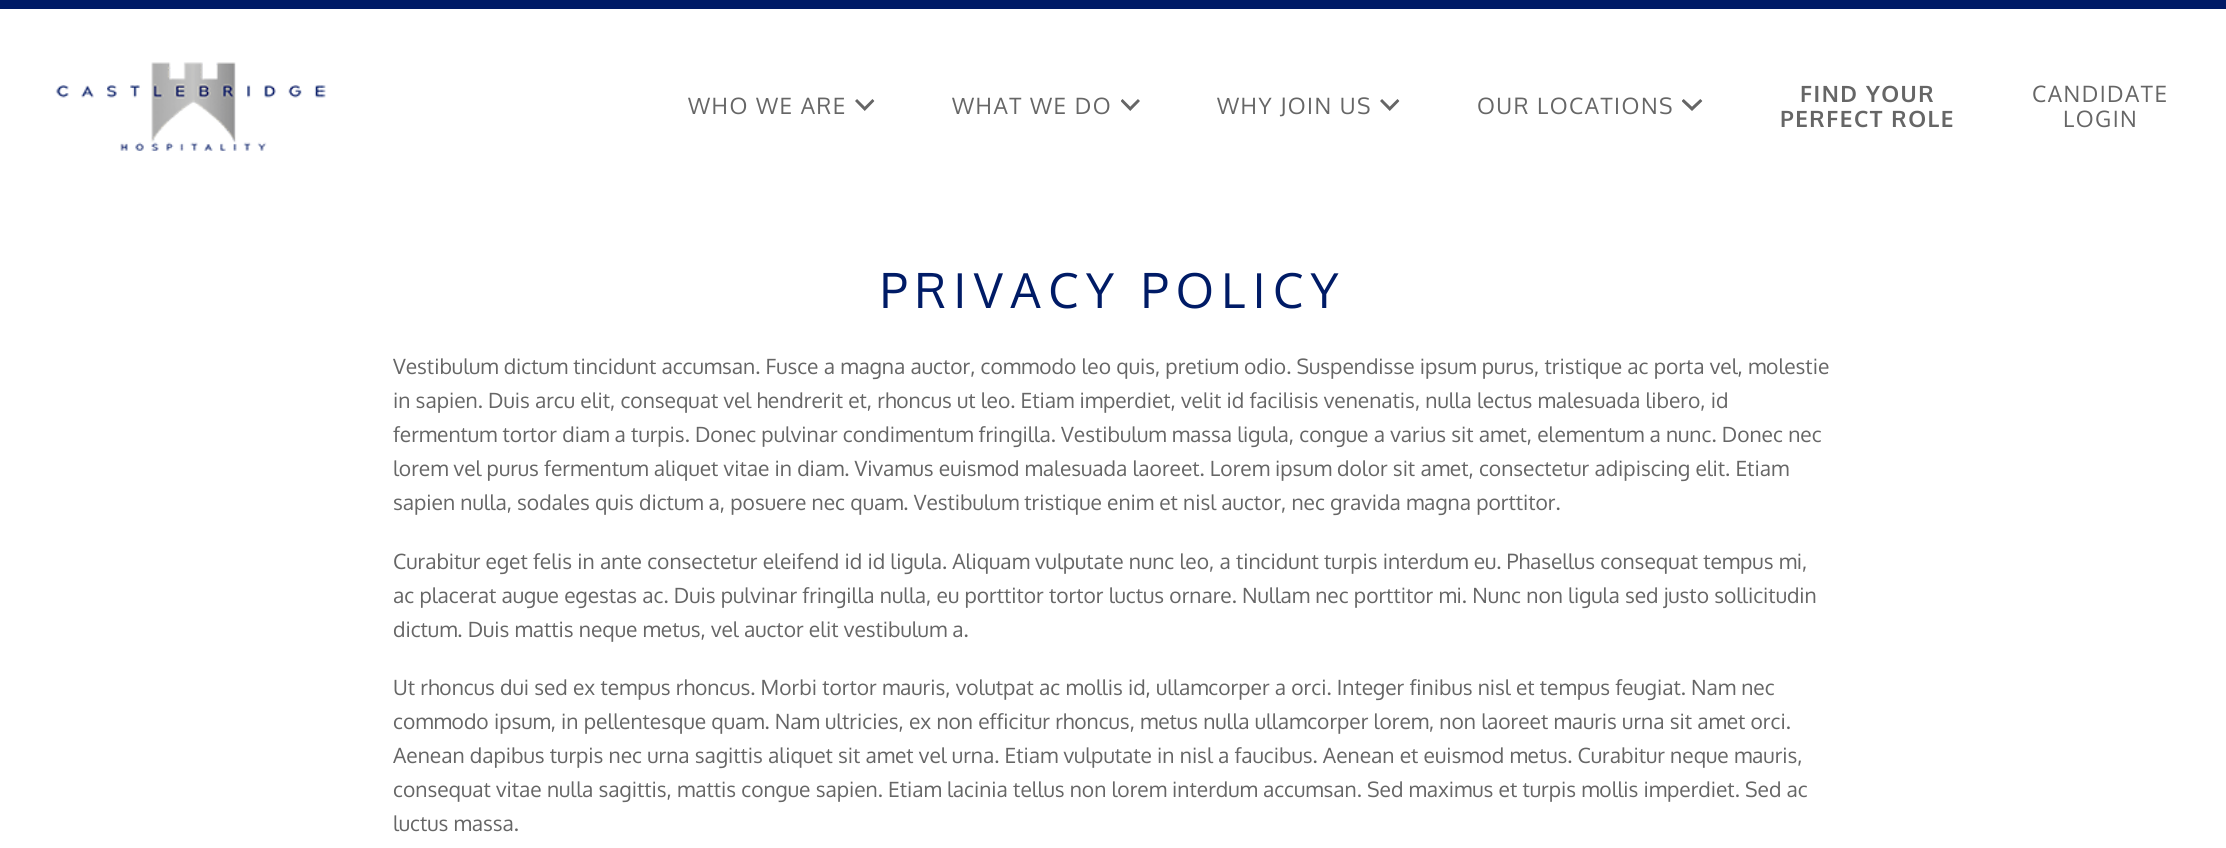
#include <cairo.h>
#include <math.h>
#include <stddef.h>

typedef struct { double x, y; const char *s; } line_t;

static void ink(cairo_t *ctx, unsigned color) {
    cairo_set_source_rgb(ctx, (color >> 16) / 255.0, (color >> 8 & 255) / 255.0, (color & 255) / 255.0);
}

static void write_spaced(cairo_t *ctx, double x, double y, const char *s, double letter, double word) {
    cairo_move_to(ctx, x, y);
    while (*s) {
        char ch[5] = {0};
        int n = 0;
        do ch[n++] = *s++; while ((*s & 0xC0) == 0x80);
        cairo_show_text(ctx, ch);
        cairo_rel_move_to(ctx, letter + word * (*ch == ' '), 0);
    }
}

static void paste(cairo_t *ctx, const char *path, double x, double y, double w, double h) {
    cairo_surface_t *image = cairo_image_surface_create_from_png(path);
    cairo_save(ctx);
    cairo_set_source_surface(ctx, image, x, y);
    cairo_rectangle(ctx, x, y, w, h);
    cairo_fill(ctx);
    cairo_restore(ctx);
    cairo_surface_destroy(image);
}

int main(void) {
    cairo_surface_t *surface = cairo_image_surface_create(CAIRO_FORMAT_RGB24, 2226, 848);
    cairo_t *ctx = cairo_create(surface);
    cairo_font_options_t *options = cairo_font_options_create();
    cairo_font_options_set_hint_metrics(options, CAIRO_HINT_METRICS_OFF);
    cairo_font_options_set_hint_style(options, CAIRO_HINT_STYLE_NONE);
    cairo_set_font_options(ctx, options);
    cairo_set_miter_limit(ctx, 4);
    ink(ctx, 0xFFFFFF);
    cairo_paint(ctx);
    ink(ctx, 0x001B66);
    cairo_rectangle(ctx, 0, 0, 2226, 9);
    cairo_fill(ctx);
    paste(ctx, "media/1.png", 55, 62, 271, 89);
    cairo_select_font_face(ctx, "Oxygen", CAIRO_FONT_SLANT_NORMAL, CAIRO_FONT_WEIGHT_NORMAL);
    cairo_set_font_size(ctx, 22.5);
    ink(ctx, 0x666666);
    write_spaced(ctx, 688, 114, "WHO WE ARE", 1.5, 0);
    paste(ctx, "media/2.png", 855, 99, 20, 12);
    write_spaced(ctx, 952, 114, "WHAT WE DO", 1.5, 0);
    paste(ctx, "media/3.png", 1121, 99, 19, 12);
    write_spaced(ctx, 1217, 114, "WHY JOIN US", 1.5, 0);
    paste(ctx, "media/2.png", 1380, 99, 20, 12);
    write_spaced(ctx, 1477, 114, "OUR LOCATIONS", 1.5, 0);
    paste(ctx, "media/4.png", 1682, 99, 21, 12);
    cairo_select_font_face(ctx, "Oxygen", CAIRO_FONT_SLANT_NORMAL, CAIRO_FONT_WEIGHT_BOLD);
    write_spaced(ctx, 1800, 102, "FIND YOUR", 1.5, 0);
    write_spaced(ctx, 1780, 127, "PERFECT ROLE", 1.5, 0);
    cairo_select_font_face(ctx, "Oxygen", CAIRO_FONT_SLANT_NORMAL, CAIRO_FONT_WEIGHT_NORMAL);
    write_spaced(ctx, 2032, 102, "CANDIDATE", 1.5, 0);
    write_spaced(ctx, 2063, 127, "LOGIN", 1.5, 0);
    cairo_set_font_size(ctx, 48);
    ink(ctx, 0x001B66);
    write_spaced(ctx, 880, 308, "PRIVACY POLICY", 7.5, 0);
    cairo_set_font_size(ctx, 21);
    ink(ctx, 0x666666);
    {
        static const line_t items[] = {
            {393, 374, "Vestibulum dictum tincidunt accumsan. Fusce a magna auctor, commodo leo quis, pretium odio. Suspendisse ipsum purus, tristique ac porta vel, molestie"},
            {393, 408, "in sapien. Duis arcu elit, consequat vel hendrerit et, rhoncus ut leo. Etiam imperdiet, velit id facilisis venenatis, nulla lectus malesuada libero, id"},
            {393, 442, "fermentum tortor diam a turpis. Donec pulvinar condimentum fringilla. Vestibulum massa ligula, congue a varius sit amet, elementum a nunc. Donec nec"},
            {393, 476, "lorem vel purus fermentum aliquet vitae in diam. Vivamus euismod malesuada laoreet. Lorem ipsum dolor sit amet, consectetur adipiscing elit. Etiam"},
            {393, 510, "sapien nulla, sodales quis dictum a, posuere nec quam. Vestibulum tristique enim et nisl auctor, nec gravida magna porttitor."},
            {393, 569, "Curabitur eget felis in ante consectetur eleifend id id ligula. Aliquam vulputate nunc leo, a tincidunt turpis interdum eu. Phasellus consequat tempus mi,"},
            {393, 603, "ac placerat augue egestas ac. Duis pulvinar fringilla nulla, eu porttitor tortor luctus ornare. Nullam nec porttitor mi. Nunc non ligula sed justo sollicitudin"},
            {393, 637, "dictum. Duis mattis neque metus, vel auctor elit vestibulum a."},
            {393, 695, "Ut rhoncus dui sed ex tempus rhoncus. Morbi tortor mauris, volutpat ac mollis id, ullamcorper a orci. Integer finibus nisl et tempus feugiat. Nam nec"},
            {393, 729, "commodo ipsum, in pellentesque quam. Nam ultricies, ex non efficitur rhoncus, metus nulla ullamcorper lorem, non laoreet mauris urna sit amet orci."},
            {393, 763, "Aenean dapibus turpis nec urna sagittis aliquet sit amet vel urna. Etiam vulputate in nisl a faucibus. Aenean et euismod metus. Curabitur neque mauris,"},
            {393, 797, "consequat vitae nulla sagittis, mattis congue sapien. Etiam lacinia tellus non lorem interdum accumsan. Sed maximus et turpis mollis imperdiet. Sed ac"},
            {393, 831, "luctus massa."},
        };
        for (size_t i = 0; i < sizeof items / sizeof *items; i++) {
            cairo_move_to(ctx, items[i].x, items[i].y);
            cairo_show_text(ctx, items[i].s);
        }
    }
    cairo_surface_write_to_png(surface, "image.png");
    cairo_font_options_destroy(options);
    cairo_destroy(ctx);
    cairo_surface_destroy(surface);
    return 0;
}
